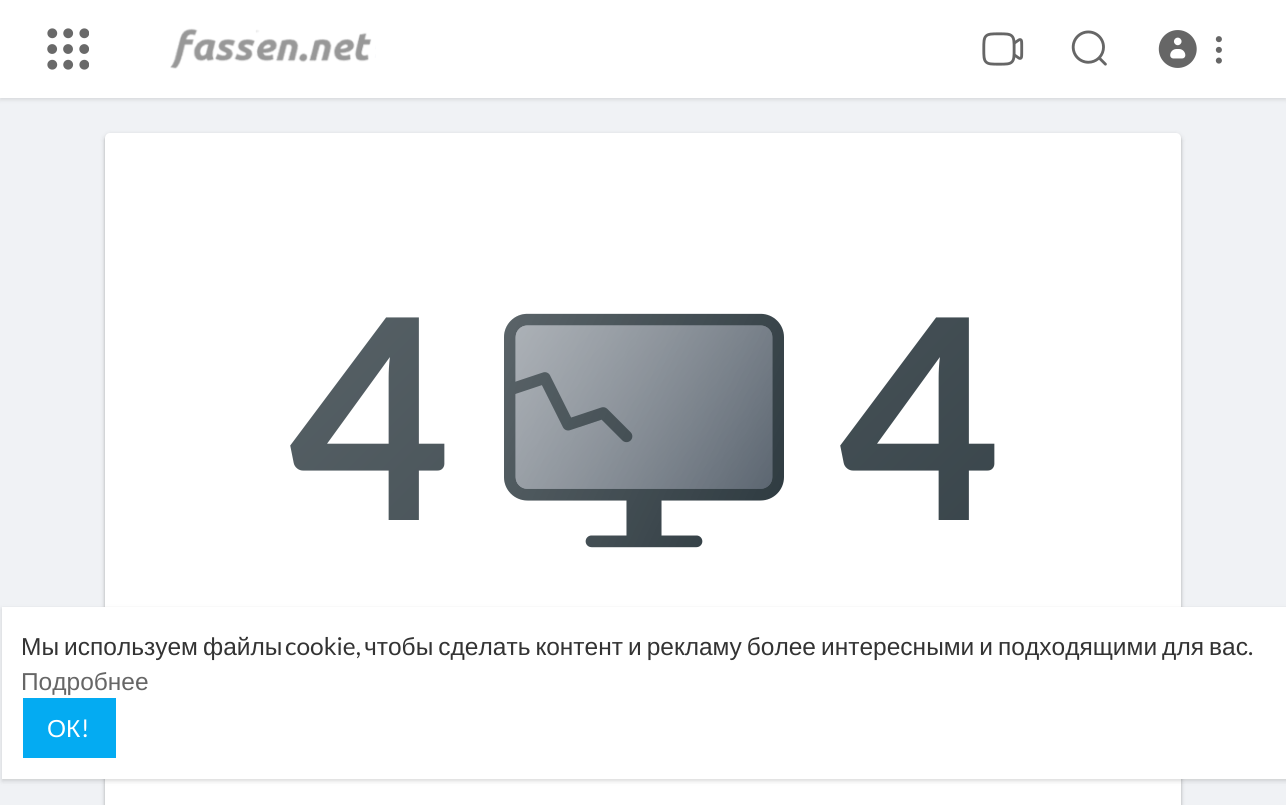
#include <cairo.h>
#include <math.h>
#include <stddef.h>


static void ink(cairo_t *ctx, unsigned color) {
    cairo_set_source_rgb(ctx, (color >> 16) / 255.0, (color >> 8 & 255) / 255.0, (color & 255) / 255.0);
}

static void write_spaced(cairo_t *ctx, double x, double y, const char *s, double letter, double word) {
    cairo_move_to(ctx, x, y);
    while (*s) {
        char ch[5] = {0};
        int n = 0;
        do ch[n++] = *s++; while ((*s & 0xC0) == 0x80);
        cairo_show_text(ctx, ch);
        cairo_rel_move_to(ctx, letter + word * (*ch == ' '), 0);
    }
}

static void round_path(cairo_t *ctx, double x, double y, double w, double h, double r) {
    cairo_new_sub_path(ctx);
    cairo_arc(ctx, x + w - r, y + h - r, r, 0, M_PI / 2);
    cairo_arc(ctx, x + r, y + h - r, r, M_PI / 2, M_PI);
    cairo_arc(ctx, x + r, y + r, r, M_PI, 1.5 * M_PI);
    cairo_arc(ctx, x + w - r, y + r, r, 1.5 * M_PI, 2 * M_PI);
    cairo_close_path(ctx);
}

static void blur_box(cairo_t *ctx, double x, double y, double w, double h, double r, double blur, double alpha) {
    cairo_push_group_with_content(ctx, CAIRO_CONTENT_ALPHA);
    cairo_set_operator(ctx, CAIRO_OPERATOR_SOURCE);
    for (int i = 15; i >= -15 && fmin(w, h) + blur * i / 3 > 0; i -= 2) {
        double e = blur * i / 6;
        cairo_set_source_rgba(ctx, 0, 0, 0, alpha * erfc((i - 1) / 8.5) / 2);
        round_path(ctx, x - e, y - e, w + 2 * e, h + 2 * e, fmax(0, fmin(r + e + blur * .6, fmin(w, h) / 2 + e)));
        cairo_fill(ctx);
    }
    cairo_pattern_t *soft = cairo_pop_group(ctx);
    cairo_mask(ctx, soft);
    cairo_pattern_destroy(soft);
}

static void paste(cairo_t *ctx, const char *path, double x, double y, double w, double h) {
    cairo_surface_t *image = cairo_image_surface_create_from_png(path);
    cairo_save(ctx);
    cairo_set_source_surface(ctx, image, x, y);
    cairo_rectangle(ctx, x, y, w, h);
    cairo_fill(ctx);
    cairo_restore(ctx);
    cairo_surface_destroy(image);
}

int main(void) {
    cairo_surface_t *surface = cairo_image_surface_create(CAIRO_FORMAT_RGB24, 1286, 805);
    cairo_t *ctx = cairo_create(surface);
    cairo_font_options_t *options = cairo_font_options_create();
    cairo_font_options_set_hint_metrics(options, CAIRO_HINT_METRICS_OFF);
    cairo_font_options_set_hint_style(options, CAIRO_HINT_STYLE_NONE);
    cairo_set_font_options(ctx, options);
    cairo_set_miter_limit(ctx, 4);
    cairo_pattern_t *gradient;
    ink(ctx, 0xF0F2F5);
    cairo_paint(ctx);
    ink(ctx, 0x000000);
    blur_box(ctx, 0, 2, 1286, 98, 0, 2, 0.1);
    ink(ctx, 0xFFFFFF);
    cairo_rectangle(ctx, 0, 0, 1286, 98);
    cairo_fill(ctx);
    paste(ctx, "media/1.png", 47, 28, 42, 42);
    paste(ctx, "media/2.png", 170, 28, 206, 41);
    paste(ctx, "media/3.png", 982, 32, 42, 34);
    paste(ctx, "media/4.png", 1071, 30, 36, 36);
    paste(ctx, "media/5.png", 1158, 30, 39, 38);
    paste(ctx, "media/6.png", 1215, 36, 7, 28);
    ink(ctx, 0x000000);
    blur_box(ctx, 105, 135, 1076, 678, 5, 1, 0.14);
    blur_box(ctx, 105, 135, 1076, 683, 5, 2.5, 0.2);
    ink(ctx, 0xFFFFFF);
    round_path(ctx, 105, 133, 1076, 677, 5);
    cairo_fill(ctx);
    cairo_select_font_face(ctx, "Lato", CAIRO_FONT_SLANT_NORMAL, CAIRO_FONT_WEIGHT_BOLD);
    cairo_set_font_size(ctx, 280);
    gradient = cairo_pattern_create_linear(381, 149, 905, 673);
    cairo_pattern_add_color_stop_rgba(gradient, 0, 0.349, 0.388, 0.408, 1);
    cairo_pattern_add_color_stop_rgba(gradient, 1, 0.22, 0.267, 0.29, 1);
    cairo_set_source(ctx, gradient);
    cairo_pattern_destroy(gradient);
    cairo_move_to(ctx, 287, 520);
    cairo_show_text(ctx, "4");
    paste(ctx, "media/7.png", 504, 313, 280, 235);
    cairo_move_to(ctx, 837, 520);
    cairo_show_text(ctx, "4");
    ink(ctx, 0x000000);
    blur_box(ctx, 2, 609, 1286, 172, 0, 2, 0.06);
    blur_box(ctx, 2, 609, 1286, 172, 0, 2.5, 0.1);
    ink(ctx, 0xFFFFFF);
    cairo_rectangle(ctx, 2, 607, 1284, 172);
    cairo_fill(ctx);
    cairo_select_font_face(ctx, "Liberation Sans", CAIRO_FONT_SLANT_NORMAL, CAIRO_FONT_WEIGHT_NORMAL);
    cairo_set_font_size(ctx, 24.5);
    ink(ctx, 0x333333);
    write_spaced(ctx, 21, 655, "Мы используем файлы", 0, -1.75);
    cairo_select_font_face(ctx, "Lato", CAIRO_FONT_SLANT_NORMAL, CAIRO_FONT_WEIGHT_NORMAL);
    cairo_move_to(ctx, 285, 655);
    cairo_show_text(ctx, "cookie,");
    cairo_select_font_face(ctx, "Liberation Sans", CAIRO_FONT_SLANT_NORMAL, CAIRO_FONT_WEIGHT_NORMAL);
    write_spaced(ctx, 364, 655, "чтобы сделать контент и рекламу более интересными и подходящими для вас", 0, -1.75);
    cairo_select_font_face(ctx, "Lato", CAIRO_FONT_SLANT_NORMAL, CAIRO_FONT_WEIGHT_NORMAL);
    cairo_move_to(ctx, 1248, 655);
    cairo_show_text(ctx, ".");
    cairo_select_font_face(ctx, "Liberation Sans", CAIRO_FONT_SLANT_NORMAL, CAIRO_FONT_WEIGHT_NORMAL);
    ink(ctx, 0x666666);
    cairo_move_to(ctx, 21, 690);
    cairo_show_text(ctx, "Подробнее");
    ink(ctx, 0x04ABF2);
    cairo_rectangle(ctx, 23, 698, 93, 60);
    cairo_fill(ctx);
    ink(ctx, 0xFFFFFF);
    cairo_move_to(ctx, 47, 737);
    cairo_show_text(ctx, "ОК");
    cairo_select_font_face(ctx, "Lato", CAIRO_FONT_SLANT_NORMAL, CAIRO_FONT_WEIGHT_NORMAL);
    cairo_move_to(ctx, 81, 737);
    cairo_show_text(ctx, "!");
    cairo_surface_write_to_png(surface, "image.png");
    cairo_font_options_destroy(options);
    cairo_destroy(ctx);
    cairo_surface_destroy(surface);
    return 0;
}
